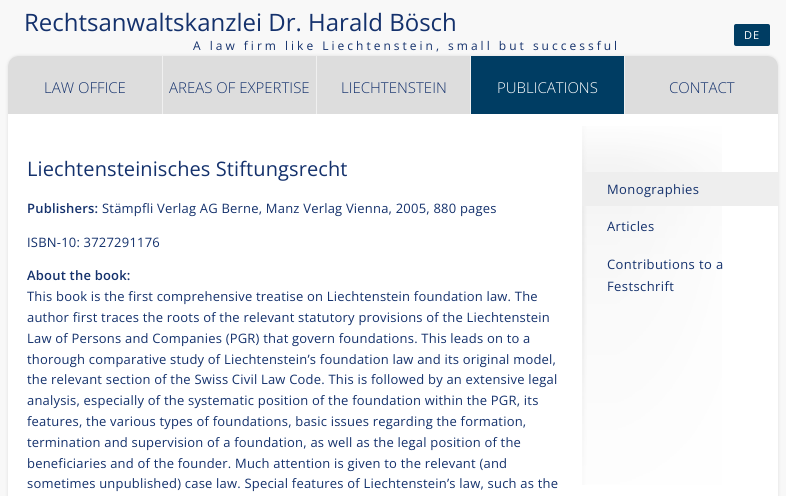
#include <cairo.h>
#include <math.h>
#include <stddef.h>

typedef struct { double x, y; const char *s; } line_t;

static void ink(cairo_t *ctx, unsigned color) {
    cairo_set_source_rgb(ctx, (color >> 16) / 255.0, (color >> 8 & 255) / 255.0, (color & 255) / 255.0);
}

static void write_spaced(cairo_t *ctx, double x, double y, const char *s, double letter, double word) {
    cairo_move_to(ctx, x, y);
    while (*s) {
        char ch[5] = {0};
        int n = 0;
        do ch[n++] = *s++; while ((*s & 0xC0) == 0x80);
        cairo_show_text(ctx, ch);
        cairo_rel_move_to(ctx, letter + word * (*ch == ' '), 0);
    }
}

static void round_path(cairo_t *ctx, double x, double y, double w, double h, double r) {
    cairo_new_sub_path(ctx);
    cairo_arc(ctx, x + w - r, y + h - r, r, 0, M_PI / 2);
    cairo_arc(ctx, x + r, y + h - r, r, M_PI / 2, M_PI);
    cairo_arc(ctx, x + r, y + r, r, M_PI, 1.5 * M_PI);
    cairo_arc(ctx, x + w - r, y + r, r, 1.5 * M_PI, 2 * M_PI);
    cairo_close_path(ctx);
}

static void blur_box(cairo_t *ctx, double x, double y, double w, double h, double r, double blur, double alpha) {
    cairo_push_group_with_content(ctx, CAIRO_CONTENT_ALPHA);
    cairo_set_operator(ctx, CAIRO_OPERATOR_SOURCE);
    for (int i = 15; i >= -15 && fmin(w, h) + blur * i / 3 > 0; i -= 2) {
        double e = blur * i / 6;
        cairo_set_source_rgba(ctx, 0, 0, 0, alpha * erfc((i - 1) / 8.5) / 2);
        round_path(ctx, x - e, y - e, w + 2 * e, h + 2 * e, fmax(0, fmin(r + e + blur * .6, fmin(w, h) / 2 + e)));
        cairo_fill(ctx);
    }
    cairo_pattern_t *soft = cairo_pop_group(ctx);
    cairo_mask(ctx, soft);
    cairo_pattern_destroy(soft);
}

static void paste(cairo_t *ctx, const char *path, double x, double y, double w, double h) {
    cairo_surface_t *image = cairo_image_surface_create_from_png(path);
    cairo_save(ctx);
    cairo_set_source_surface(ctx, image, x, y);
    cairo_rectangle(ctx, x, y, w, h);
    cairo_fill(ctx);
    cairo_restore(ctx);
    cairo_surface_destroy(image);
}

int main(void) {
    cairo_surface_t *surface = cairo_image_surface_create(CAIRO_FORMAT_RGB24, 786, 496);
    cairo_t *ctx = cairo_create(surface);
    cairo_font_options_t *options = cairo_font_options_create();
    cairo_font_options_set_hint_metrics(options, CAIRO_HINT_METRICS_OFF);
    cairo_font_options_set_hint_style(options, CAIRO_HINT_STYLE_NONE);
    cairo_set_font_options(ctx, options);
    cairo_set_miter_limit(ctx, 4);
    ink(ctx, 0xF8F8F8);
    cairo_paint(ctx);
    cairo_select_font_face(ctx, "Open Sans", CAIRO_FONT_SLANT_NORMAL, CAIRO_FONT_WEIGHT_NORMAL);
    cairo_set_font_size(ctx, 24);
    ink(ctx, 0x14316C);
    cairo_move_to(ctx, 24, 31);
    cairo_show_text(ctx, "Rechtsanwaltskanzlei Dr. Harald Bösch");
    ink(ctx, 0xDDDDDD);
    blur_box(ctx, 8, 56, 770, 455, 10, 1.5, 1);
    cairo_set_font_size(ctx, 12);
    ink(ctx, 0x14316C);
    write_spaced(ctx, 193, 50, "A law firm like Liechtenstein, small but successful", 3, 0);
    ink(ctx, 0x003D63);
    round_path(ctx, 734, 24, 36, 22, 2);
    cairo_fill(ctx);
    cairo_set_font_size(ctx, 11);
    ink(ctx, 0xFFFFFF);
    write_spaced(ctx, 744, 39, "DE", 1, 0);
    round_path(ctx, 8, 56, 770, 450, 10);
    cairo_fill(ctx);
    ink(ctx, 0xDDDDDD);
    cairo_new_path(ctx);
    cairo_move_to(ctx, 18, 56);
    cairo_line_to(ctx, 768, 56);
    cairo_curve_to(ctx, 773.5, 56, 778, 60.5, 778, 66);
    cairo_line_to(ctx, 778, 114);
    cairo_line_to(ctx, 8, 114);
    cairo_line_to(ctx, 8, 66);
    cairo_curve_to(ctx, 8, 60.5, 12.5, 56, 18, 56);
    cairo_close_path(ctx);
    cairo_fill(ctx);
    cairo_select_font_face(ctx, "Open Sans Light", CAIRO_FONT_SLANT_NORMAL, CAIRO_FONT_WEIGHT_NORMAL);
    cairo_set_font_size(ctx, 15);
    ink(ctx, 0x14316C);
    cairo_move_to(ctx, 44, 93);
    cairo_show_text(ctx, "LAW OFFICE");
    ink(ctx, 0xF0F0F0);
    cairo_rectangle(ctx, 162, 56, 1, 58);
    cairo_fill(ctx);
    ink(ctx, 0x14316C);
    cairo_move_to(ctx, 169, 93);
    cairo_show_text(ctx, "AREAS OF EXPERTISE");
    ink(ctx, 0xF0F0F0);
    cairo_rectangle(ctx, 316, 56, 1, 58);
    cairo_fill(ctx);
    ink(ctx, 0x14316C);
    cairo_move_to(ctx, 341, 93);
    cairo_show_text(ctx, "LIECHTENSTEIN");
    ink(ctx, 0x003D63);
    cairo_rectangle(ctx, 471, 56, 153, 58);
    cairo_fill(ctx);
    ink(ctx, 0xF0F0F0);
    cairo_rectangle(ctx, 470, 56, 1, 58);
    cairo_fill(ctx);
    ink(ctx, 0xFFFFFF);
    cairo_move_to(ctx, 497, 93);
    cairo_show_text(ctx, "PUBLICATIONS");
    ink(ctx, 0xF0F0F0);
    cairo_rectangle(ctx, 624, 56, 1, 58);
    cairo_fill(ctx);
    ink(ctx, 0x14316C);
    cairo_move_to(ctx, 669, 93);
    cairo_show_text(ctx, "CONTACT");
    cairo_select_font_face(ctx, "Open Sans", CAIRO_FONT_SLANT_NORMAL, CAIRO_FONT_WEIGHT_NORMAL);
    cairo_set_font_size(ctx, 20);
    write_spaced(ctx, 27, 176, "Liechtensteinisches Stiftungsrecht", 0.1, 0);
    cairo_select_font_face(ctx, "Open Sans SemiBold", CAIRO_FONT_SLANT_NORMAL, CAIRO_FONT_WEIGHT_NORMAL);
    cairo_set_font_size(ctx, 13);
    write_spaced(ctx, 27, 213, "Publishers:", 0.2, 0);
    cairo_select_font_face(ctx, "Open Sans", CAIRO_FONT_SLANT_NORMAL, CAIRO_FONT_WEIGHT_NORMAL);
    write_spaced(ctx, 102, 213, "Stämpfli Verlag AG Berne, Manz Verlag Vienna, 2005, 880 pages", 0.2, 0);
    write_spaced(ctx, 27, 247, "ISBN-10: 3727291176", 0.2, 0);
    cairo_select_font_face(ctx, "Open Sans SemiBold", CAIRO_FONT_SLANT_NORMAL, CAIRO_FONT_WEIGHT_NORMAL);
    write_spaced(ctx, 27, 280, "About the book:", 0.2, 0);
    cairo_select_font_face(ctx, "Open Sans", CAIRO_FONT_SLANT_NORMAL, CAIRO_FONT_WEIGHT_NORMAL);
    {
        static const line_t items[] = {
            {27, 301, "This book is the first comprehensive treatise on Liechtenstein foundation law. The"},
            {27, 322, "author first traces the roots of the relevant statutory provisions of the Liechtenstein"},
            {27, 343, "Law of Persons and Companies (PGR) that govern foundations. This leads on to a"},
            {27, 364, "thorough comparative study of Liechtenstein’s foundation law and its original model,"},
            {27, 384, "the relevant section of the Swiss Civil Law Code. This is followed by an extensive legal"},
            {27, 405, "analysis, especially of the systematic position of the foundation within the PGR, its"},
            {27, 426, "features, the various types of foundations, basic issues regarding the formation,"},
            {27, 447, "termination and supervision of a foundation, as well as the legal position of the"},
            {27, 468, "beneficiaries and of the founder. Much attention is given to the relevant (and"},
            {27, 488, "sometimes unpublished) case law. Special features of Liechtenstein’s law, such as the"},
        };
        for (size_t i = 0; i < sizeof items / sizeof *items; i++) {
            write_spaced(ctx, items[i].x, items[i].y, items[i].s, 0.2, 0);
        }
    }
    paste(ctx, "media/1.png", 582, 126, 140, 359);
    ink(ctx, 0xEEEEEE);
    cairo_rectangle(ctx, 582, 172, 196, 34);
    cairo_fill(ctx);
    ink(ctx, 0x14316C);
    {
        static const line_t items[] = {
            {607, 194, "Monographies"},
            {607, 231, "Articles"},
            {607, 269, "Contributions to a"},
            {607, 291, "Festschrift"},
        };
        for (size_t i = 0; i < sizeof items / sizeof *items; i++) {
            write_spaced(ctx, items[i].x, items[i].y, items[i].s, 0.4, 0);
        }
    }
    cairo_surface_write_to_png(surface, "image.png");
    cairo_font_options_destroy(options);
    cairo_destroy(ctx);
    cairo_surface_destroy(surface);
    return 0;
}
